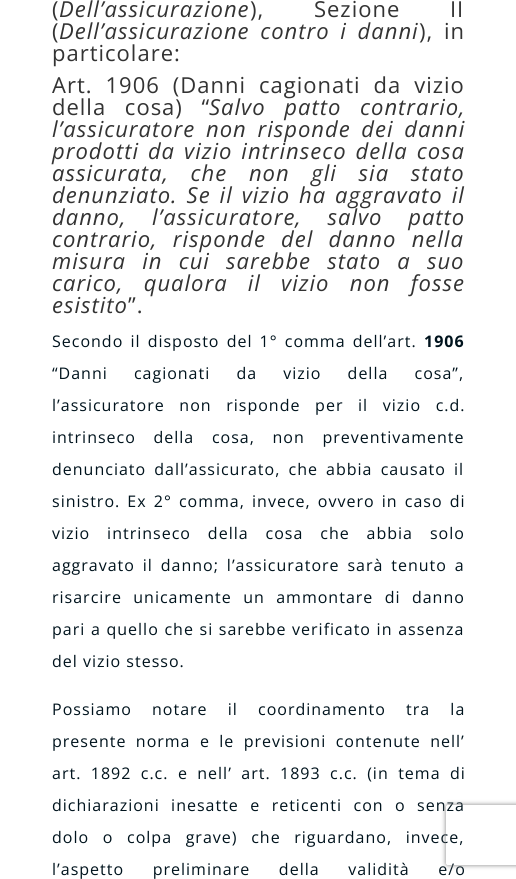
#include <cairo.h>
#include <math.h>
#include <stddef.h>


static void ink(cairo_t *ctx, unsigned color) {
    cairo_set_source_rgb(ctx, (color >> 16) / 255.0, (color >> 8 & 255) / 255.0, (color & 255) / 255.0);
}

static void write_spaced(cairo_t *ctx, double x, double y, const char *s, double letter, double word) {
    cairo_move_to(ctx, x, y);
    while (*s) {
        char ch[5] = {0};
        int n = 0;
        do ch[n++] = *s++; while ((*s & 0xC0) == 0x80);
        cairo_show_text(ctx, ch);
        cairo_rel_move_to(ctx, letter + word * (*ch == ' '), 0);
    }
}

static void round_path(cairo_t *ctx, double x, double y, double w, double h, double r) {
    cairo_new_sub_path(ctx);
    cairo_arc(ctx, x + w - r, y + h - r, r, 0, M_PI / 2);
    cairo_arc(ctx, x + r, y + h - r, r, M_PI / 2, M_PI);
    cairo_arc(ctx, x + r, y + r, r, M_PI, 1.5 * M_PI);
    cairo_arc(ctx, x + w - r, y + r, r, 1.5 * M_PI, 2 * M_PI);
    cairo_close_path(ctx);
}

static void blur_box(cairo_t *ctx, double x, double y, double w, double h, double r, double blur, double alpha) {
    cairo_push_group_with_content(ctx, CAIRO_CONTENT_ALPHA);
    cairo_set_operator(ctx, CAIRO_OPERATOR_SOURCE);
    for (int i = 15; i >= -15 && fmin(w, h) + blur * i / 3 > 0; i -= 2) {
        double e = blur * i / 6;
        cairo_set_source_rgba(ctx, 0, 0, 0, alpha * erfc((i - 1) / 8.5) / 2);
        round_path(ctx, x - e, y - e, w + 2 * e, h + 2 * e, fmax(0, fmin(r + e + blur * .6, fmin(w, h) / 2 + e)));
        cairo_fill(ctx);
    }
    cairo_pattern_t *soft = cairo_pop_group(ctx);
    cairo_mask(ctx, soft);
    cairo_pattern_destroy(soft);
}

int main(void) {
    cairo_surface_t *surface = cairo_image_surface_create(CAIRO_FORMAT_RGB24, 516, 879);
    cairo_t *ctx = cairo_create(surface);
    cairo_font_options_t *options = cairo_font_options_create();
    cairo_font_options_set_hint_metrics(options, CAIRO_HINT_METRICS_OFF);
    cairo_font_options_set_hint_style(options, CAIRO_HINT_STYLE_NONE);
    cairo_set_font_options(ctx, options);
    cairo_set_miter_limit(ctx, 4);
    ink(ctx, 0xFFFFFF);
    cairo_paint(ctx);
    cairo_select_font_face(ctx, "Open Sans", CAIRO_FONT_SLANT_NORMAL, CAIRO_FONT_WEIGHT_NORMAL);
    cairo_set_font_size(ctx, 22);
    ink(ctx, 0x333333);
    write_spaced(ctx, 52, 17, "(", 1, 0);
    cairo_select_font_face(ctx, "Open Sans", CAIRO_FONT_SLANT_ITALIC, CAIRO_FONT_WEIGHT_NORMAL);
    write_spaced(ctx, 59, 17, "Dell’assicurazione", 1, 0);
    cairo_select_font_face(ctx, "Open Sans", CAIRO_FONT_SLANT_NORMAL, CAIRO_FONT_WEIGHT_NORMAL);
    write_spaced(ctx, 250, 17, "), Sezione II", 1, 43);
    write_spaced(ctx, 52, 39, "(", 1, 0);
    cairo_select_font_face(ctx, "Open Sans", CAIRO_FONT_SLANT_ITALIC, CAIRO_FONT_WEIGHT_NORMAL);
    write_spaced(ctx, 59, 39, "Dell’assicurazione contro i danni", 1, 4);
    cairo_select_font_face(ctx, "Open Sans", CAIRO_FONT_SLANT_NORMAL, CAIRO_FONT_WEIGHT_NORMAL);
    write_spaced(ctx, 419, 39, "), in", 1, 4);
    write_spaced(ctx, 52, 61, "particolare:", 1, 0);
    write_spaced(ctx, 52, 93, "Art. 1906 (Danni cagionati da vizio", 1, 6.25);
    write_spaced(ctx, 52, 115, "della cosa) “", 1, 12);
    cairo_select_font_face(ctx, "Open Sans", CAIRO_FONT_SLANT_ITALIC, CAIRO_FONT_WEIGHT_NORMAL);
    write_spaced(ctx, 209, 115, "Salvo patto contrario,", 1, 12);
    write_spaced(ctx, 52, 137, "l’assicuratore non risponde dei danni", 1, 4);
    write_spaced(ctx, 52, 159, "prodotti da vizio intrinseco della cosa", 1, 2.25);
    write_spaced(ctx, 52, 181, "assicurata, che non gli sia stato", 1, 15);
    write_spaced(ctx, 52, 203, "denunziato. Se il vizio ha aggravato il", 1, 2.25);
    write_spaced(ctx, 52, 225, "danno, l’assicuratore, salvo patto", 1, 19);
    write_spaced(ctx, 52, 247, "contrario, risponde del danno nella", 1, 8.5);
    write_spaced(ctx, 52, 269, "misura in cui sarebbe stato a suo", 1, 9.5);
    write_spaced(ctx, 52, 291, "carico, qualora il vizio non fosse", 1, 13.5);
    write_spaced(ctx, 52, 313, "esistito", 1, 0);
    cairo_select_font_face(ctx, "Open Sans", CAIRO_FONT_SLANT_NORMAL, CAIRO_FONT_WEIGHT_NORMAL);
    write_spaced(ctx, 128, 313, "”.", 1, 0);
    cairo_set_font_size(ctx, 16);
    ink(ctx, 0x00131D);
    write_spaced(ctx, 52, 347, "Secondo il disposto del 1° comma dell’art.", 1, 2);
    cairo_select_font_face(ctx, "Open Sans", CAIRO_FONT_SLANT_NORMAL, CAIRO_FONT_WEIGHT_BOLD);
    write_spaced(ctx, 424, 347, "1906", 1, 0);
    cairo_select_font_face(ctx, "Open Sans", CAIRO_FONT_SLANT_NORMAL, CAIRO_FONT_WEIGHT_NORMAL);
    write_spaced(ctx, 52, 379, "“Danni cagionati da vizio della cosa”,", 1, 21);
    write_spaced(ctx, 52, 411, "l’assicuratore non risponde per il vizio c.d.", 1, 9.5);
    write_spaced(ctx, 52, 443, "intrinseco della cosa, non preventivamente", 1, 12.5);
    write_spaced(ctx, 52, 475, "denunciato dall’assicurato, che abbia causato il", 1, 3);
    write_spaced(ctx, 52, 507, "sinistro. Ex 2° comma, invece, ovvero in caso di", 1, 2);
    write_spaced(ctx, 52, 539, "vizio intrinseco della cosa che abbia solo", 1, 11.75);
    write_spaced(ctx, 52, 571, "aggravato il danno; l’assicuratore sarà tenuto a", 1, 2.75);
    write_spaced(ctx, 52, 603, "risarcire unicamente un ammontare di danno", 1, 6.25);
    write_spaced(ctx, 52, 635, "pari a quello che si sarebbe verificato in assenza", 1, 0.5);
    write_spaced(ctx, 52, 667, "del vizio stesso.", 1, 0);
    write_spaced(ctx, 52, 715, "Possiamo notare il coordinamento tra la", 1, 15);
    write_spaced(ctx, 52, 747, "presente norma e le previsioni contenute nell’", 1, 4.25);
    write_spaced(ctx, 52, 779, "art. 1892 c.c. e nell’ art. 1893 c.c. (in tema di", 1, 4.25);
    write_spaced(ctx, 52, 811, "dichiarazioni inesatte e reticenti con o senza", 1, 6.25);
    write_spaced(ctx, 52, 843, "dolo o colpa grave) che riguardano, invece,", 1, 8.5);
    write_spaced(ctx, 52, 875, "l’aspetto preliminare della validità e/o", 1, 23.5);
    cairo_save(ctx);
    cairo_set_fill_rule(ctx, CAIRO_FILL_RULE_EVEN_ODD);
    cairo_new_path(ctx);
    cairo_move_to(ctx, 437, 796);
    cairo_line_to(ctx, 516, 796);
    cairo_line_to(ctx, 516, 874);
    cairo_line_to(ctx, 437, 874);
    cairo_close_path(ctx);
    cairo_move_to(ctx, 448, 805);
    cairo_line_to(ctx, 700, 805);
    cairo_curve_to(ctx, 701, 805, 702, 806, 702, 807);
    cairo_line_to(ctx, 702, 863);
    cairo_curve_to(ctx, 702, 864, 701, 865, 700, 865);
    cairo_line_to(ctx, 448, 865);
    cairo_curve_to(ctx, 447, 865, 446, 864, 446, 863);
    cairo_line_to(ctx, 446, 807);
    cairo_curve_to(ctx, 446, 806, 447, 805, 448, 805);
    cairo_close_path(ctx);
    cairo_clip(ctx);
    ink(ctx, 0x808080);
    blur_box(ctx, 446, 805, 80, 60, 2, 2.5, 1);
    cairo_restore(ctx);
    cairo_surface_write_to_png(surface, "image.png");
    cairo_font_options_destroy(options);
    cairo_destroy(ctx);
    cairo_surface_destroy(surface);
    return 0;
}
